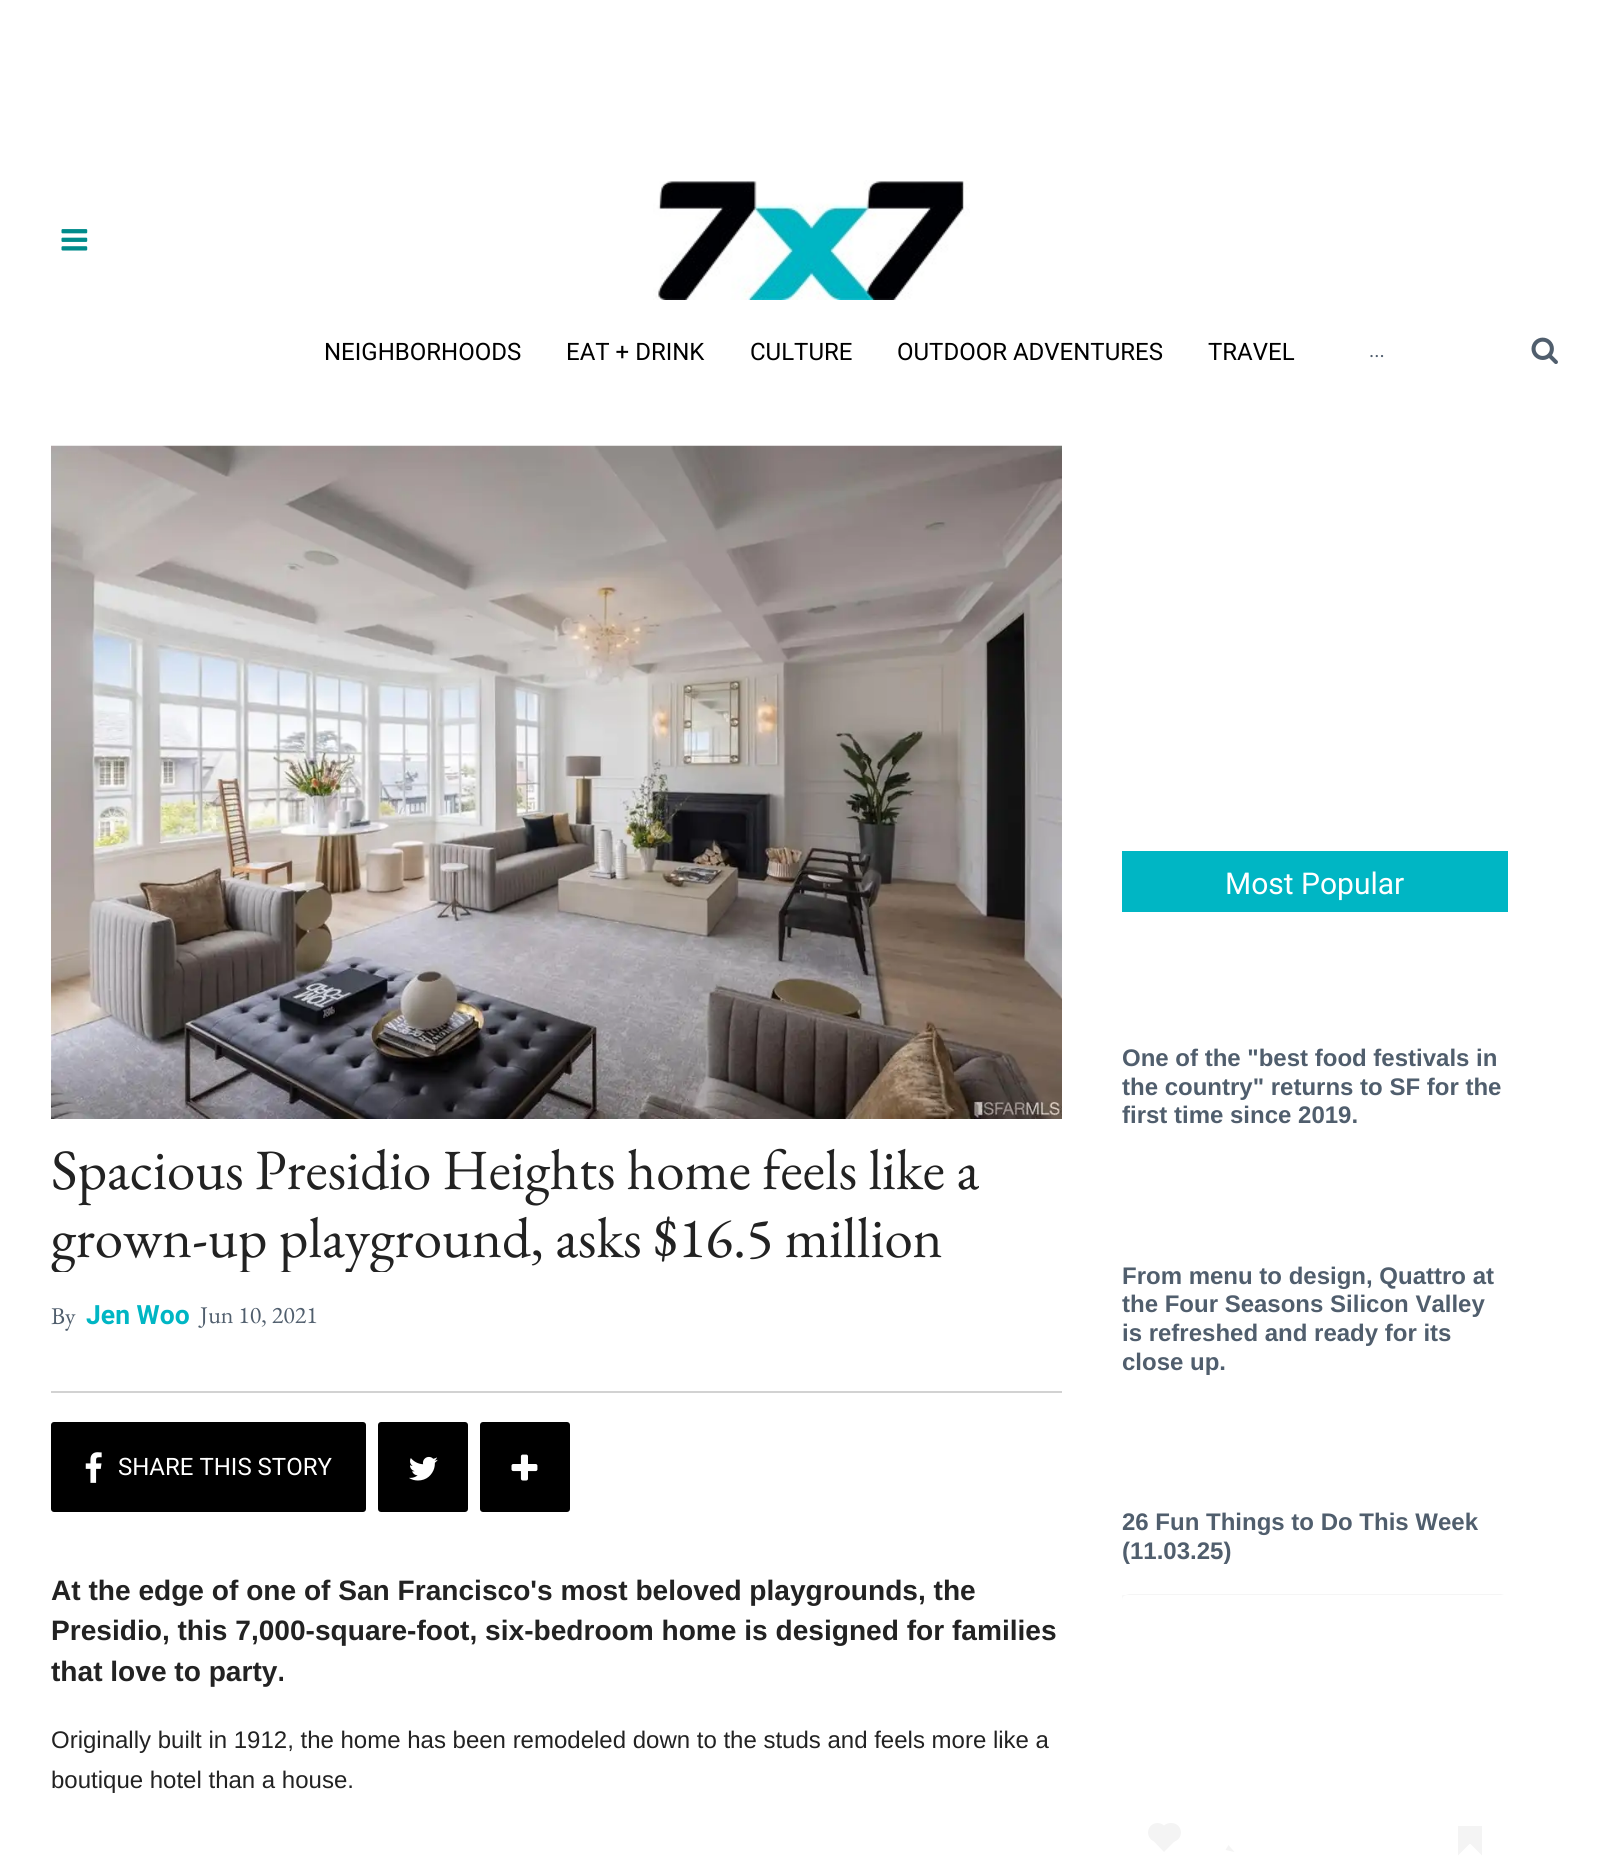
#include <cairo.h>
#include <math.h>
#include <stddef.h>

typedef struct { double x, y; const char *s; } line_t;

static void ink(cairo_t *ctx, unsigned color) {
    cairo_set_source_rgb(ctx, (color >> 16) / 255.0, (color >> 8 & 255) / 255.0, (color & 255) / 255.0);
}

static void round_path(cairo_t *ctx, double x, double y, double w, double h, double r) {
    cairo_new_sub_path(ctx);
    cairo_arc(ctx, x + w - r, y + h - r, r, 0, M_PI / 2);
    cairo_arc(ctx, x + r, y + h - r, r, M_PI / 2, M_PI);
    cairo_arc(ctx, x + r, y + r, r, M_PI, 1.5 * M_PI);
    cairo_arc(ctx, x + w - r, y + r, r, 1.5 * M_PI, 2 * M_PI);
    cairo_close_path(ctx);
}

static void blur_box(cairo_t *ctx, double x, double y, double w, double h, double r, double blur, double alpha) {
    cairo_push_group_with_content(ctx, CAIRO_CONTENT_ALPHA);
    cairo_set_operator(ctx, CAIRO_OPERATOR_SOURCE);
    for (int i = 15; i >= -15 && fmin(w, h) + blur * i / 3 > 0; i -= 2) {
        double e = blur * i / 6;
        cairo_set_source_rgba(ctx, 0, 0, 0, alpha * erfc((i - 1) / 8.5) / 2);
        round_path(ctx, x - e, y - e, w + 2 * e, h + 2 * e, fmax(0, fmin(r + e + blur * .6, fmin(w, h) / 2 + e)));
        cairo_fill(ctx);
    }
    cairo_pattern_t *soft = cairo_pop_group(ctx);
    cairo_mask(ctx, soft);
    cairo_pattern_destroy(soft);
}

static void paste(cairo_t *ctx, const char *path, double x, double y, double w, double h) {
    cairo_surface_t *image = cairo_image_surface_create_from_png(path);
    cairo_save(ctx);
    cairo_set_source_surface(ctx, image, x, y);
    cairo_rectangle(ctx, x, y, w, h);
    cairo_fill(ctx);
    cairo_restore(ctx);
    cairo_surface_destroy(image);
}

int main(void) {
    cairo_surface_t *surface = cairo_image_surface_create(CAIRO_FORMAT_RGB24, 1618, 1869);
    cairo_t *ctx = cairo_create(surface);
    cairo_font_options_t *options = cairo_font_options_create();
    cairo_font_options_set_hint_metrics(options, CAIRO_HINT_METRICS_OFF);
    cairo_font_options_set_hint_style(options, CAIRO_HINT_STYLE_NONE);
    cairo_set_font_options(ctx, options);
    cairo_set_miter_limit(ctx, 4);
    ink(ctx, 0xFFFFFF);
    cairo_paint(ctx);
    paste(ctx, "media/1.png", 61, 229, 27, 22);
    paste(ctx, "media/2.png", 653, 180, 317, 120);
    cairo_select_font_face(ctx, "Roboto", CAIRO_FONT_SLANT_NORMAL, CAIRO_FONT_WEIGHT_NORMAL);
    cairo_set_font_size(ctx, 24);
    ink(ctx, 0x000000);
    {
        static const line_t items[] = {
            {324, 360, "NEIGHBORHOODS"},
            {566, 360, "EAT + DRINK"},
            {750, 360, "CULTURE"},
            {897, 360, "OUTDOOR ADVENTURES"},
            {1208, 360, "TRAVEL"},
        };
        for (size_t i = 0; i < sizeof items / sizeof *items; i++) {
            cairo_move_to(ctx, items[i].x, items[i].y);
            cairo_show_text(ctx, items[i].s);
        }
    }
    paste(ctx, "media/3.png", 1531, 337, 27, 27);
    cairo_set_font_size(ctx, 20);
    ink(ctx, 0x505E6D);
    cairo_move_to(ctx, 1369, 357);
    cairo_show_text(ctx, "...");
    paste(ctx, "media/4.png", 51, 445, 1011, 674);
    cairo_select_font_face(ctx, "EB Garamond", CAIRO_FONT_SLANT_NORMAL, CAIRO_FONT_WEIGHT_NORMAL);
    cairo_set_font_size(ctx, 57);
    ink(ctx, 0x222222);
    cairo_move_to(ctx, 51, 1189);
    cairo_show_text(ctx, "Spacious Presidio Heights home feels like a");
    cairo_save(ctx);
    cairo_rectangle(ctx, 51, 446, 1011, 826);
    cairo_clip(ctx);
    cairo_move_to(ctx, 51, 1257);
    cairo_show_text(ctx, "grown-up playground, asks $16.5 million");
    cairo_restore(ctx);
    cairo_set_font_size(ctx, 24);
    ink(ctx, 0x505E6D);
    cairo_move_to(ctx, 51, 1324);
    cairo_show_text(ctx, "By");
    ink(ctx, 0xD2D2D2);
    cairo_rectangle(ctx, 51, 1391, 1011, 2);
    cairo_fill(ctx);
    cairo_select_font_face(ctx, "Roboto", CAIRO_FONT_SLANT_NORMAL, CAIRO_FONT_WEIGHT_BOLD);
    cairo_set_font_size(ctx, 26.5);
    ink(ctx, 0x00B6C4);
    cairo_move_to(ctx, 86, 1324);
    cairo_show_text(ctx, "Jen Woo");
    cairo_select_font_face(ctx, "EB Garamond", CAIRO_FONT_SLANT_NORMAL, CAIRO_FONT_WEIGHT_NORMAL);
    cairo_set_font_size(ctx, 24);
    ink(ctx, 0x505E6D);
    cairo_move_to(ctx, 200, 1323);
    cairo_show_text(ctx, "Jun 10, 2021");
    ink(ctx, 0x000000);
    round_path(ctx, 51, 1422, 315, 90, 3);
    cairo_fill(ctx);
    paste(ctx, "media/5.png", 85, 1452, 17, 31);
    cairo_select_font_face(ctx, "Roboto", CAIRO_FONT_SLANT_NORMAL, CAIRO_FONT_WEIGHT_NORMAL);
    ink(ctx, 0xFFFFFF);
    cairo_move_to(ctx, 118, 1475);
    cairo_show_text(ctx, "SHARE THIS STORY");
    ink(ctx, 0x000000);
    round_path(ctx, 378, 1422, 90, 90, 3);
    cairo_fill(ctx);
    paste(ctx, "media/6.png", 409, 1456, 29, 25);
    round_path(ctx, 480, 1422, 90, 90, 3);
    cairo_fill(ctx);
    paste(ctx, "media/7.png", 511, 1454, 27, 27);
    cairo_select_font_face(ctx, "Liberation Sans", CAIRO_FONT_SLANT_NORMAL, CAIRO_FONT_WEIGHT_BOLD);
    cairo_set_font_size(ctx, 28.1);
    ink(ctx, 0x222222);
    {
        static const line_t items[] = {
            {51, 1600, "At the edge of one of San Francisco's most beloved playgrounds, the"},
            {51, 1640, "Presidio, this 7,000-square-foot, six-bedroom home is designed for families"},
            {51, 1681, "that love to party."},
        };
        for (size_t i = 0; i < sizeof items / sizeof *items; i++) {
            cairo_move_to(ctx, items[i].x, items[i].y);
            cairo_show_text(ctx, items[i].s);
        }
    }
    cairo_select_font_face(ctx, "Liberation Sans", CAIRO_FONT_SLANT_NORMAL, CAIRO_FONT_WEIGHT_NORMAL);
    cairo_set_font_size(ctx, 24);
    cairo_move_to(ctx, 51, 1748);
    cairo_show_text(ctx, "Originally built in 1912, the home has been remodeled down to the studs and feels more like a");
    cairo_move_to(ctx, 51, 1788);
    cairo_show_text(ctx, "boutique hotel than a house.");
    ink(ctx, 0x00B6C4);
    cairo_rectangle(ctx, 1122, 851, 386, 61);
    cairo_fill(ctx);
    cairo_select_font_face(ctx, "Roboto", CAIRO_FONT_SLANT_NORMAL, CAIRO_FONT_WEIGHT_NORMAL);
    cairo_set_font_size(ctx, 30);
    ink(ctx, 0xFFFFFF);
    cairo_move_to(ctx, 1225, 894);
    cairo_show_text(ctx, "Most Popular");
    cairo_select_font_face(ctx, "Liberation Sans", CAIRO_FONT_SLANT_NORMAL, CAIRO_FONT_WEIGHT_BOLD);
    cairo_set_font_size(ctx, 24);
    ink(ctx, 0x505E6D);
    {
        static const line_t items[] = {
            {1122, 1066, "One of the \"best food festivals in"},
            {1122, 1095, "the country\" returns to SF for the"},
            {1122, 1123, "first time since 2019."},
            {1122, 1284, "From menu to design, Quattro at"},
            {1122, 1312, "the Four Seasons Silicon Valley"},
            {1122, 1341, "is refreshed and ready for its"},
            {1122, 1370, "close up."},
            {1122, 1530, "26 Fun Things to Do This Week"},
            {1122, 1559, "(11.03.25)"},
        };
        for (size_t i = 0; i < sizeof items / sizeof *items; i++) {
            cairo_move_to(ctx, items[i].x, items[i].y);
            cairo_show_text(ctx, items[i].s);
        }
    }
    cairo_save(ctx);
    cairo_rectangle(ctx, 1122, 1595, 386, 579);
    cairo_clip(ctx);
    ink(ctx, 0x000000);
    blur_box(ctx, 1124, 1598, 382, 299, 5, 7.5, 0.15);
    cairo_restore(ctx);
    ink(ctx, 0x000000);
    blur_box(ctx, 1124, 1596, 382, 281, 5, 1, 0.5);
    ink(ctx, 0xFFFFFF);
    cairo_new_path(ctx);
    cairo_move_to(ctx, 1127, 1595);
    cairo_line_to(ctx, 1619, 1595);
    cairo_line_to(ctx, 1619, 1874);
    cairo_line_to(ctx, 1127, 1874);
    cairo_curve_to(ctx, 1124, 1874, 1122, 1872, 1122, 1869);
    cairo_line_to(ctx, 1122, 1600);
    cairo_curve_to(ctx, 1122, 1597, 1124, 1595, 1127, 1595);
    cairo_close_path(ctx);
    cairo_fill(ctx);
    ink(ctx, 0xF4F4F4);
    cairo_arc(ctx, 1157.5, 1832.5, 9.5, 0, 2 * M_PI);
    cairo_fill(ctx);
    cairo_new_path(ctx);
    cairo_move_to(ctx, 1151, 1838.5);
    cairo_line_to(ctx, 1164, 1825.5);
    cairo_line_to(ctx, 1177.5, 1838.5);
    cairo_line_to(ctx, 1164, 1852);
    cairo_close_path(ctx);
    cairo_fill(ctx);
    round_path(ctx, 1161, 1823, 20, 19, 9.5);
    cairo_fill(ctx);
    cairo_new_path(ctx);
    cairo_move_to(ctx, 1225.5, 1850);
    cairo_line_to(ctx, 1228.5, 1845);
    cairo_line_to(ctx, 1234.5, 1852);
    cairo_close_path(ctx);
    cairo_fill(ctx);
    cairo_new_path(ctx);
    cairo_move_to(ctx, 1458, 1843.5);
    cairo_line_to(ctx, 1470, 1843.5);
    cairo_line_to(ctx, 1458, 1855.5);
    cairo_close_path(ctx);
    cairo_fill(ctx);
    cairo_rectangle(ctx, 1458, 1826, 24, 18);
    cairo_fill(ctx);
    cairo_new_path(ctx);
    cairo_move_to(ctx, 1470, 1843.5);
    cairo_line_to(ctx, 1482, 1843.5);
    cairo_line_to(ctx, 1482, 1855.5);
    cairo_close_path(ctx);
    cairo_fill(ctx);
    cairo_surface_write_to_png(surface, "image.png");
    cairo_font_options_destroy(options);
    cairo_destroy(ctx);
    cairo_surface_destroy(surface);
    return 0;
}
